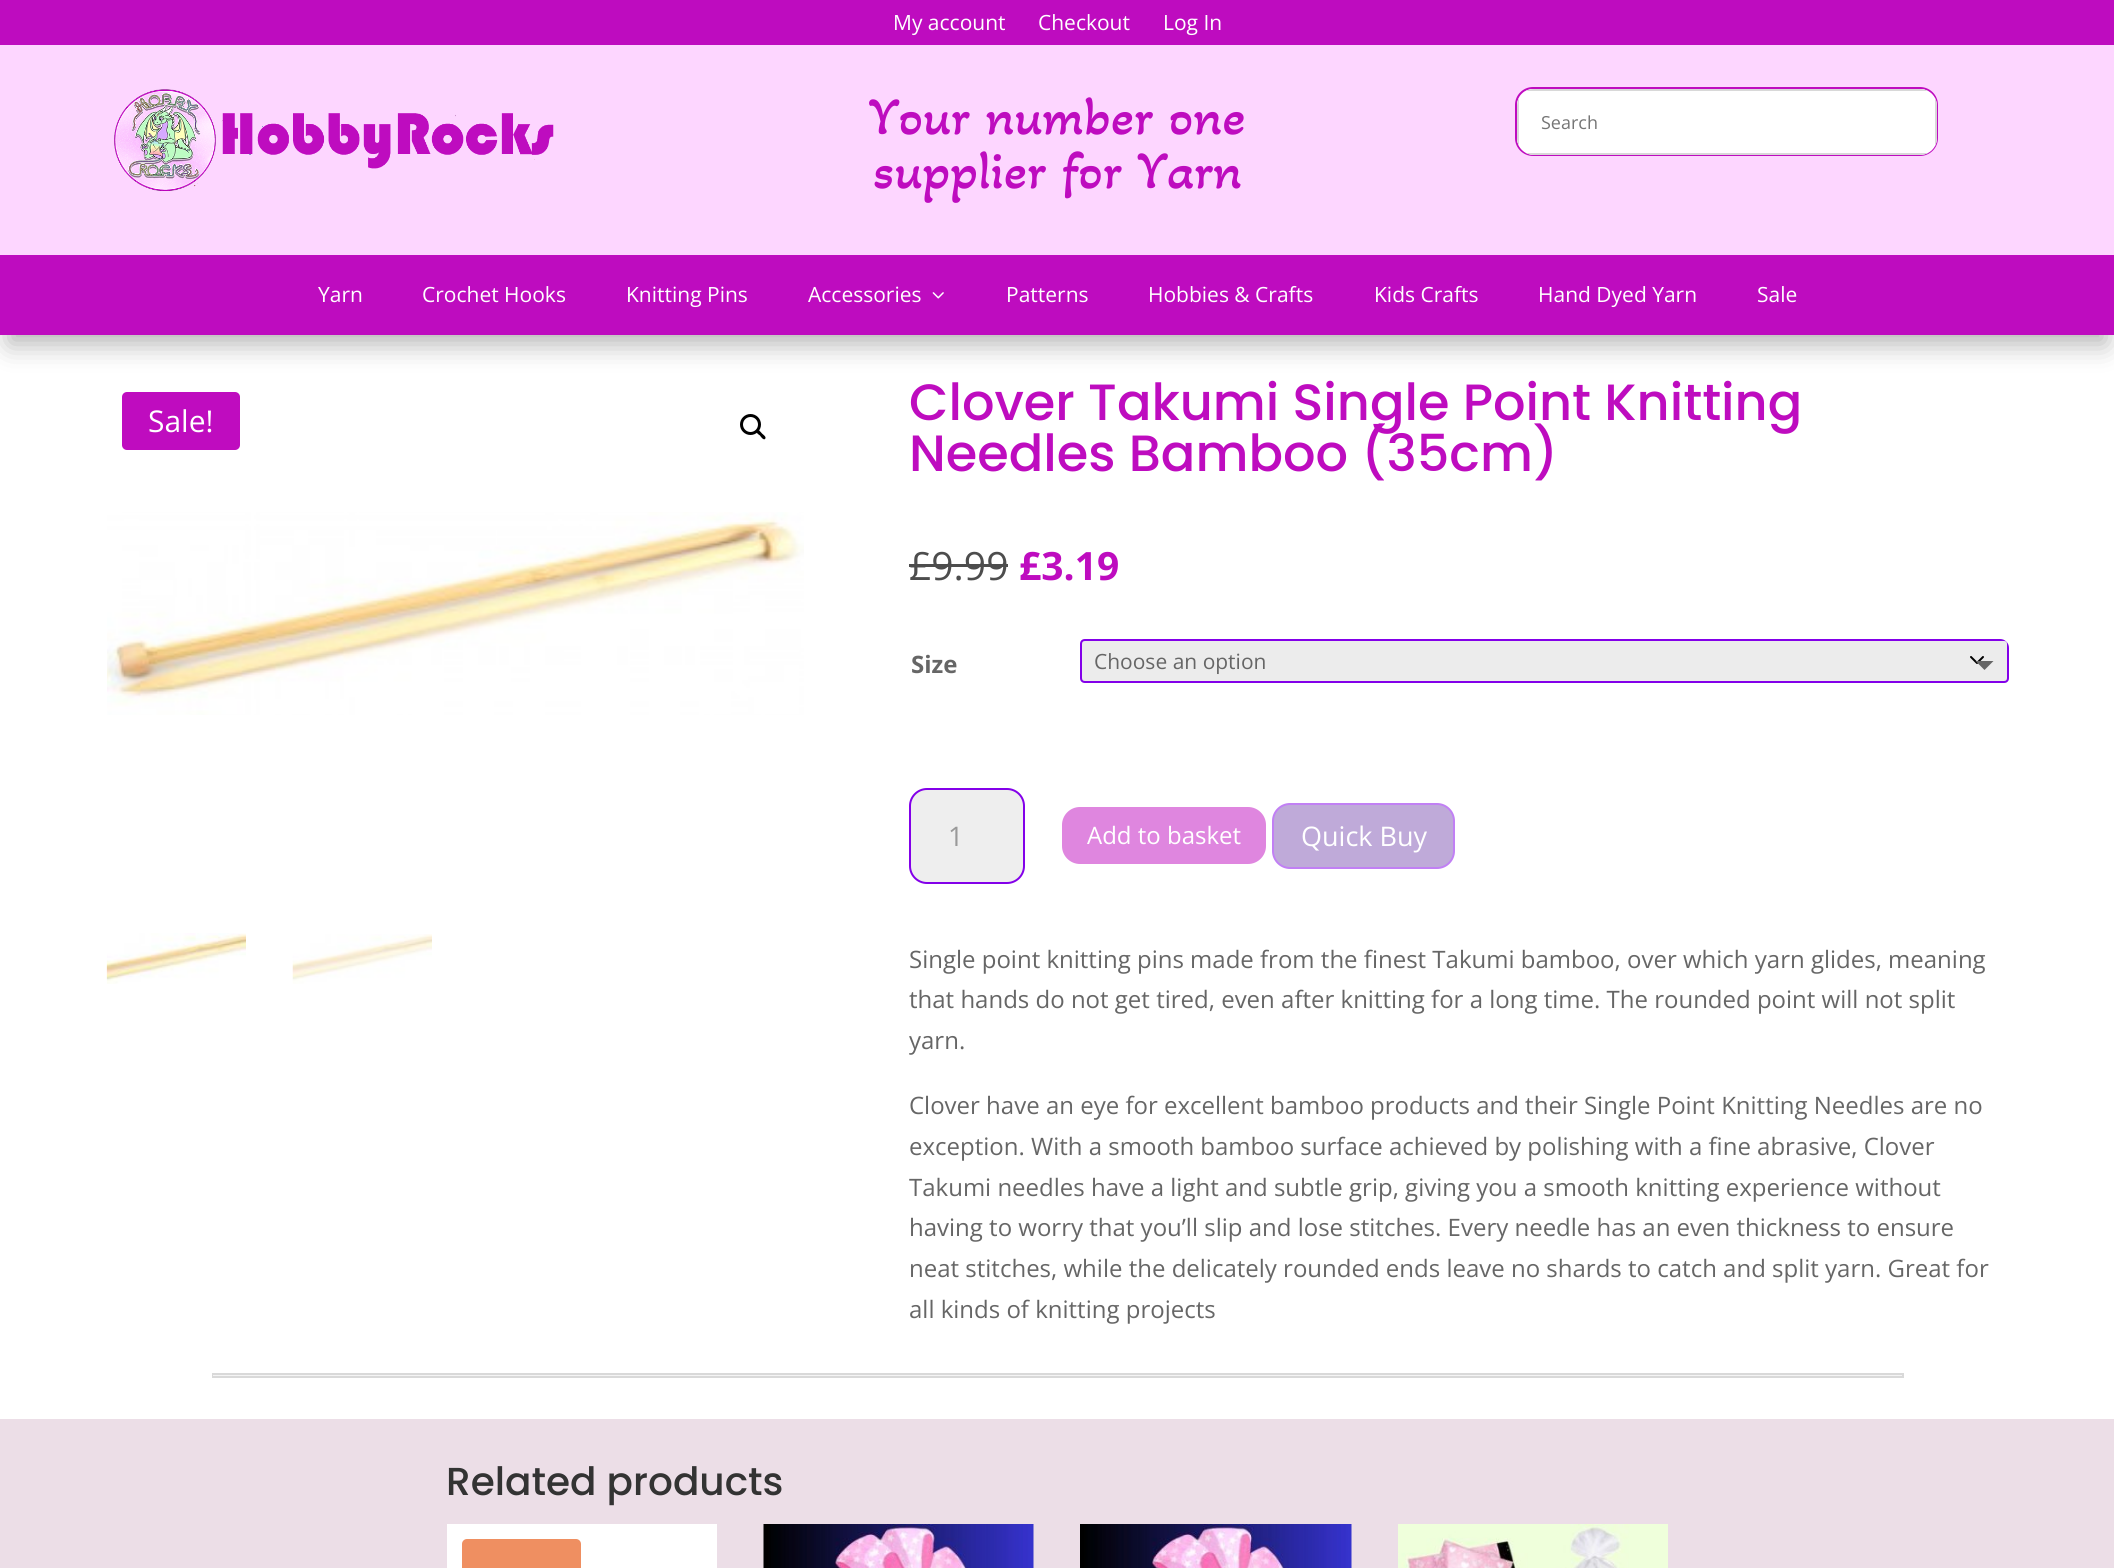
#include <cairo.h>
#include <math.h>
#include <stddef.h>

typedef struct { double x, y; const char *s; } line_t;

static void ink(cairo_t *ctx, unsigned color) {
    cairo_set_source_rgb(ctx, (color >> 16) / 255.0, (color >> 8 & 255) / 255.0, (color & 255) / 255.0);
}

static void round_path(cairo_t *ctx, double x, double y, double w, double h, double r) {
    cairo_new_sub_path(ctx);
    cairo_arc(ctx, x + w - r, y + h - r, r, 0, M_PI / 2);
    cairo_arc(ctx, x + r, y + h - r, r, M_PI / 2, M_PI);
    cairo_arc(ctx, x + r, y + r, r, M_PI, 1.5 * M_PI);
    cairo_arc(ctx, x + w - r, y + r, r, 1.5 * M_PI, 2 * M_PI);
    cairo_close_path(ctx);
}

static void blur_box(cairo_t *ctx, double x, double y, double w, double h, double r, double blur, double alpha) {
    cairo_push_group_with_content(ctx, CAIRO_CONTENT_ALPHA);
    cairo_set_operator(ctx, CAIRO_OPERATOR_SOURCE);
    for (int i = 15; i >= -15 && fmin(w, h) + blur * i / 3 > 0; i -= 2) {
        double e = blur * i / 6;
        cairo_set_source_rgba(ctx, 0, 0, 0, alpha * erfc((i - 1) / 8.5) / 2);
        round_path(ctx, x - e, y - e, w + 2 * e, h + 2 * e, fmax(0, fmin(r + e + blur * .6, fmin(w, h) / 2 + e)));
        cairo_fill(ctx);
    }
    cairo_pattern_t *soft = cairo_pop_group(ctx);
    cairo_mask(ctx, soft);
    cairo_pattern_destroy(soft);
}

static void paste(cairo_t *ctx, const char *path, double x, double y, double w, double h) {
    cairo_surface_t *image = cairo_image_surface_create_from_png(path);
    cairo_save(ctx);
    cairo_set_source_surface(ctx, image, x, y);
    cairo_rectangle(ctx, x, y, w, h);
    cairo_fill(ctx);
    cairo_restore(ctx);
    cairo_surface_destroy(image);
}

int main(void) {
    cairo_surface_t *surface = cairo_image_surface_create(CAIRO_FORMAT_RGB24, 2114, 1568);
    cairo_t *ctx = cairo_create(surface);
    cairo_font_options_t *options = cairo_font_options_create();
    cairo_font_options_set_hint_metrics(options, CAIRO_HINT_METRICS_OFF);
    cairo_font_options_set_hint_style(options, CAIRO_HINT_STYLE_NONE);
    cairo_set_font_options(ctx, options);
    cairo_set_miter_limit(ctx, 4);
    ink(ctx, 0xFFFFFF);
    cairo_paint(ctx);
    ink(ctx, 0xFDD6FF);
    cairo_rectangle(ctx, 0, 45, 2114, 210);
    cairo_fill(ctx);
    ink(ctx, 0xBE0CBF);
    cairo_rectangle(ctx, 0, 0, 2114, 45);
    cairo_fill(ctx);
    cairo_select_font_face(ctx, "Open Sans", CAIRO_FONT_SLANT_NORMAL, CAIRO_FONT_WEIGHT_NORMAL);
    cairo_set_font_size(ctx, 21);
    ink(ctx, 0xFFFFFF);
    {
        static const line_t items[] = {
            {893, 30, "My account"},
            {1038, 30, "Checkout"},
            {1163, 30, "Log In"},
        };
        for (size_t i = 0; i < sizeof items / sizeof *items; i++) {
            cairo_move_to(ctx, items[i].x, items[i].y);
            cairo_show_text(ctx, items[i].s);
        }
    }
    paste(ctx, "media/1.png", 114, 89, 440, 102);
    cairo_select_font_face(ctx, "Akaya Telivigala", CAIRO_FONT_SLANT_NORMAL, CAIRO_FONT_WEIGHT_NORMAL);
    cairo_set_font_size(ctx, 54);
    ink(ctx, 0xBE0CBF);
    cairo_move_to(ctx, 869, 134);
    cairo_show_text(ctx, "Your number one");
    cairo_move_to(ctx, 873, 188);
    cairo_show_text(ctx, "supplier for Yarn");
    round_path(ctx, 1516, 88, 421, 67, 17);
    cairo_stroke(ctx);
    ink(ctx, 0xFFFFFF);
    round_path(ctx, 1517, 89, 420, 66, 17);
    cairo_fill(ctx);
    ink(ctx, 0xD8D8D8);
    cairo_set_fill_rule(ctx, CAIRO_FILL_RULE_EVEN_ODD);
    cairo_new_path(ctx);
    cairo_move_to(ctx, 1517, 106);
    cairo_line_to(ctx, 1517, 138);
    cairo_curve_to(ctx, 1517, 141, 1518, 144, 1519, 146);
    cairo_line_to(ctx, 1519, 98);
    cairo_curve_to(ctx, 1518, 100, 1517, 103, 1517, 106);
    cairo_close_path(ctx);
    cairo_move_to(ctx, 1534, 89);
    cairo_curve_to(ctx, 1531, 89, 1528, 90, 1526, 91);
    cairo_line_to(ctx, 1928, 91);
    cairo_curve_to(ctx, 1926, 90, 1923, 89, 1920, 89);
    cairo_close_path(ctx);
    cairo_move_to(ctx, 1937, 106);
    cairo_curve_to(ctx, 1937, 103, 1936, 100, 1935, 98);
    cairo_line_to(ctx, 1935, 146);
    cairo_curve_to(ctx, 1936, 144, 1937, 141, 1937, 138);
    cairo_close_path(ctx);
    cairo_move_to(ctx, 1920, 155);
    cairo_curve_to(ctx, 1923, 155, 1926, 154, 1928, 153);
    cairo_line_to(ctx, 1526, 153);
    cairo_curve_to(ctx, 1528, 154, 1531, 155, 1534, 155);
    cairo_close_path(ctx);
    cairo_fill(ctx);
    cairo_select_font_face(ctx, "Open Sans", CAIRO_FONT_SLANT_NORMAL, CAIRO_FONT_WEIGHT_NORMAL);
    cairo_set_font_size(ctx, 18);
    ink(ctx, 0x757575);
    cairo_move_to(ctx, 1541, 129);
    cairo_show_text(ctx, "Search");
    ink(ctx, 0x000000);
    blur_box(ctx, 9, 282, 2097, 62, 0, 13.5, 0.3);
    ink(ctx, 0xBE0CBF);
    cairo_rectangle(ctx, 0, 255, 2114, 80);
    cairo_fill(ctx);
    cairo_set_font_size(ctx, 21);
    ink(ctx, 0xFFFFFF);
    {
        static const line_t items[] = {
            {318, 302, "Yarn"},
            {422, 302, "Crochet Hooks"},
            {626, 302, "Knitting Pins"},
            {808, 302, "Accessories"},
        };
        for (size_t i = 0; i < sizeof items / sizeof *items; i++) {
            cairo_move_to(ctx, items[i].x, items[i].y);
            cairo_show_text(ctx, items[i].s);
        }
    }
    paste(ctx, "media/2.png", 932, 292, 12, 7);
    {
        static const line_t items[] = {
            {1006, 302, "Patterns"},
            {1148, 302, "Hobbies & Crafts"},
            {1374, 302, "Kids Crafts"},
            {1538, 302, "Hand Dyed Yarn"},
            {1757, 302, "Sale"},
        };
        for (size_t i = 0; i < sizeof items / sizeof *items; i++) {
            cairo_move_to(ctx, items[i].x, items[i].y);
            cairo_show_text(ctx, items[i].s);
        }
    }
    ink(ctx, 0xBF0CBF);
    round_path(ctx, 122, 392, 118, 58, 5);
    cairo_fill(ctx);
    cairo_set_font_size(ctx, 30);
    ink(ctx, 0xFFFFFF);
    cairo_move_to(ctx, 148, 432);
    cairo_show_text(ctx, "Sale!");
    cairo_new_path(ctx);
    cairo_arc(ctx, 750.5, 424.5, 9, 0, 2 * M_PI);
    ink(ctx, 0x000000);
    cairo_set_line_width(ctx, 3);
    cairo_stroke(ctx);
    cairo_set_fill_rule(ctx, CAIRO_FILL_RULE_WINDING);
    cairo_new_path(ctx);
    cairo_move_to(ctx, 756.5, 430.5);
    cairo_curve_to(ctx, 758.5, 428.5, 761, 432.5, 762, 433.5);
    cairo_curve_to(ctx, 763, 434.5, 767, 437, 765, 439);
    cairo_curve_to(ctx, 763.5, 440.5, 760.5, 436.5, 760, 435.5);
    cairo_curve_to(ctx, 759, 435, 755, 432, 756.5, 430.5);
    cairo_close_path(ctx);
    cairo_fill(ctx);
    paste(ctx, "media/3.png", 107, 512, 697, 203);
    paste(ctx, "media/4.png", 106, 933, 140, 51);
    paste(ctx, "media/5.png", 292, 934, 140, 50);
    cairo_select_font_face(ctx, "Poppins Medium", CAIRO_FONT_SLANT_NORMAL, CAIRO_FONT_WEIGHT_NORMAL);
    cairo_set_font_size(ctx, 51);
    ink(ctx, 0xBE0CBF);
    cairo_move_to(ctx, 909, 420);
    cairo_show_text(ctx, "Clover Takumi Single Point Knitting");
    cairo_move_to(ctx, 909, 471);
    cairo_show_text(ctx, "Needles Bamboo (35cm)");
    cairo_select_font_face(ctx, "Open Sans", CAIRO_FONT_SLANT_NORMAL, CAIRO_FONT_WEIGHT_NORMAL);
    cairo_set_font_size(ctx, 39);
    ink(ctx, 0x4D4D4D);
    cairo_move_to(ctx, 909, 580);
    cairo_show_text(ctx, "£9.99");
    cairo_rectangle(ctx, 909, 564, 99, 3);
    cairo_fill(ctx);
    cairo_select_font_face(ctx, "Open Sans", CAIRO_FONT_SLANT_NORMAL, CAIRO_FONT_WEIGHT_BOLD);
    ink(ctx, 0xBE0CBF);
    cairo_move_to(ctx, 1019, 580);
    cairo_show_text(ctx, "£3.19");
    cairo_set_font_size(ctx, 24);
    ink(ctx, 0x666666);
    cairo_move_to(ctx, 911, 673);
    cairo_show_text(ctx, "Size");
    ink(ctx, 0xECECEC);
    cairo_new_path(ctx);
    cairo_move_to(ctx, 1085, 639);
    cairo_line_to(ctx, 2000, 639);
    cairo_curve_to(ctx, 2005, 639, 2009, 643, 2009, 648);
    cairo_line_to(ctx, 2009, 678);
    cairo_curve_to(ctx, 2009, 681, 2007, 683, 2004, 683);
    cairo_line_to(ctx, 1085, 683);
    cairo_curve_to(ctx, 1082, 683, 1080, 681, 1080, 678);
    cairo_line_to(ctx, 1080, 644);
    cairo_curve_to(ctx, 1080, 641, 1082, 639, 1085, 639);
    cairo_close_path(ctx);
    cairo_fill(ctx);
    cairo_new_path(ctx);
    cairo_move_to(ctx, 1971, 657);
    cairo_line_to(ctx, 1977, 663);
    cairo_line_to(ctx, 1983, 657);
    ink(ctx, 0x000000);
    cairo_set_line_width(ctx, 2);
    cairo_set_line_cap(ctx, CAIRO_LINE_CAP_ROUND);
    cairo_set_line_join(ctx, CAIRO_LINE_JOIN_ROUND);
    cairo_stroke(ctx);
    ink(ctx, 0x8300E9);
    cairo_set_fill_rule(ctx, CAIRO_FILL_RULE_EVEN_ODD);
    cairo_new_path(ctx);
    cairo_move_to(ctx, 1085, 639);
    cairo_curve_to(ctx, 1082, 639, 1080, 641, 1080, 644);
    cairo_line_to(ctx, 1080, 678);
    cairo_curve_to(ctx, 1080, 681, 1082, 683, 1085, 683);
    cairo_line_to(ctx, 2004, 683);
    cairo_curve_to(ctx, 2007, 683, 2009, 681, 2009, 678);
    cairo_line_to(ctx, 2009, 648);
    cairo_curve_to(ctx, 2009, 643, 2005, 639, 2000, 639);
    cairo_close_path(ctx);
    cairo_move_to(ctx, 1085, 641);
    cairo_curve_to(ctx, 1083, 641, 1082, 642, 1082, 644);
    cairo_line_to(ctx, 1082, 678);
    cairo_curve_to(ctx, 1082, 680, 1083, 681, 1085, 681);
    cairo_line_to(ctx, 2004, 681);
    cairo_curve_to(ctx, 2006, 681, 2007, 680, 2007, 678);
    cairo_line_to(ctx, 2007, 644);
    cairo_curve_to(ctx, 2007, 642, 2006, 641, 2004, 641);
    cairo_close_path(ctx);
    cairo_fill(ctx);
    cairo_select_font_face(ctx, "Open Sans", CAIRO_FONT_SLANT_NORMAL, CAIRO_FONT_WEIGHT_NORMAL);
    cairo_set_font_size(ctx, 21);
    ink(ctx, 0x666666);
    cairo_move_to(ctx, 1094, 669);
    cairo_show_text(ctx, "Choose an option");
    cairo_set_fill_rule(ctx, CAIRO_FILL_RULE_WINDING);
    cairo_new_path(ctx);
    cairo_move_to(ctx, 1975.5, 661);
    cairo_line_to(ctx, 1993.5, 661);
    cairo_line_to(ctx, 1984.5, 670);
    cairo_close_path(ctx);
    cairo_fill(ctx);
    ink(ctx, 0xEEEEEE);
    round_path(ctx, 910, 789, 114, 94, 17);
    cairo_fill_preserve(ctx);
    ink(ctx, 0x8300E9);
    cairo_set_line_cap(ctx, CAIRO_LINE_CAP_BUTT);
    cairo_set_line_join(ctx, CAIRO_LINE_JOIN_MITER);
    cairo_stroke(ctx);
    cairo_set_font_size(ctx, 27);
    ink(ctx, 0x999999);
    cairo_move_to(ctx, 948, 846);
    cairo_show_text(ctx, "1");
    ink(ctx, 0xDF86DF);
    round_path(ctx, 1063, 808, 202, 55, 17);
    cairo_fill_preserve(ctx);
    cairo_stroke(ctx);
    cairo_set_font_size(ctx, 24);
    ink(ctx, 0xFFFFFF);
    cairo_move_to(ctx, 1087, 844);
    cairo_show_text(ctx, "Add to basket");
    ink(ctx, 0xBFAAD9);
    round_path(ctx, 1273, 804, 181, 64, 17);
    cairo_fill_preserve(ctx);
    ink(ctx, 0xC180F4);
    cairo_stroke(ctx);
    cairo_set_font_size(ctx, 27);
    ink(ctx, 0xFFFFFF);
    cairo_move_to(ctx, 1301, 846);
    cairo_show_text(ctx, "Quick Buy");
    cairo_set_font_size(ctx, 24);
    ink(ctx, 0x666666);
    {
        static const line_t items[] = {
            {909, 968, "Single point knitting pins made from the finest Takumi bamboo, over which yarn glides, meaning"},
            {909, 1008, "that hands do not get tired, even after knitting for a long time. The rounded point will not split"},
            {909, 1049, "yarn."},
            {909, 1114, "Clover have an eye for excellent bamboo products and their Single Point Knitting Needles are no"},
            {909, 1155, "exception. With a smooth bamboo surface achieved by polishing with a fine abrasive, Clover"},
            {909, 1196, "Takumi needles have a light and subtle grip, giving you a smooth knitting experience without"},
            {909, 1236, "having to worry that you’ll slip and lose stitches. Every needle has an even thickness to ensure"},
            {909, 1277, "neat stitches, while the delicately rounded ends leave no shards to catch and split yarn. Great for"},
            {909, 1318, "all kinds of knitting projects"},
        };
        for (size_t i = 0; i < sizeof items / sizeof *items; i++) {
            cairo_move_to(ctx, items[i].x, items[i].y);
            cairo_show_text(ctx, items[i].s);
        }
    }
    cairo_rectangle(ctx, 213, 1374, 1690, 3);
    ink(ctx, 0xD9D9D9);
    cairo_stroke(ctx);
    ink(ctx, 0xF4F4F4);
    cairo_rectangle(ctx, 213, 1375, 1689, 1);
    cairo_fill(ctx);
    ink(ctx, 0xECDEE7);
    cairo_rectangle(ctx, 0, 1419, 2114, 149);
    cairo_fill(ctx);
    cairo_select_font_face(ctx, "Poppins Medium", CAIRO_FONT_SLANT_NORMAL, CAIRO_FONT_WEIGHT_NORMAL);
    cairo_set_font_size(ctx, 39);
    ink(ctx, 0x333333);
    cairo_move_to(ctx, 446, 1495);
    cairo_show_text(ctx, "Related products");
    ink(ctx, 0xFFFFFF);
    cairo_rectangle(ctx, 447, 1524, 270, 44);
    cairo_fill(ctx);
    ink(ctx, 0xEF8F61);
    round_path(ctx, 462, 1539, 119, 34, 5);
    cairo_fill(ctx);
    paste(ctx, "media/6.png", 763, 1524, 271, 44);
    paste(ctx, "media/7.png", 1080, 1524, 272, 44);
    paste(ctx, "media/8.png", 1398, 1524, 270, 44);
    cairo_surface_write_to_png(surface, "image.png");
    cairo_font_options_destroy(options);
    cairo_destroy(ctx);
    cairo_surface_destroy(surface);
    return 0;
}
